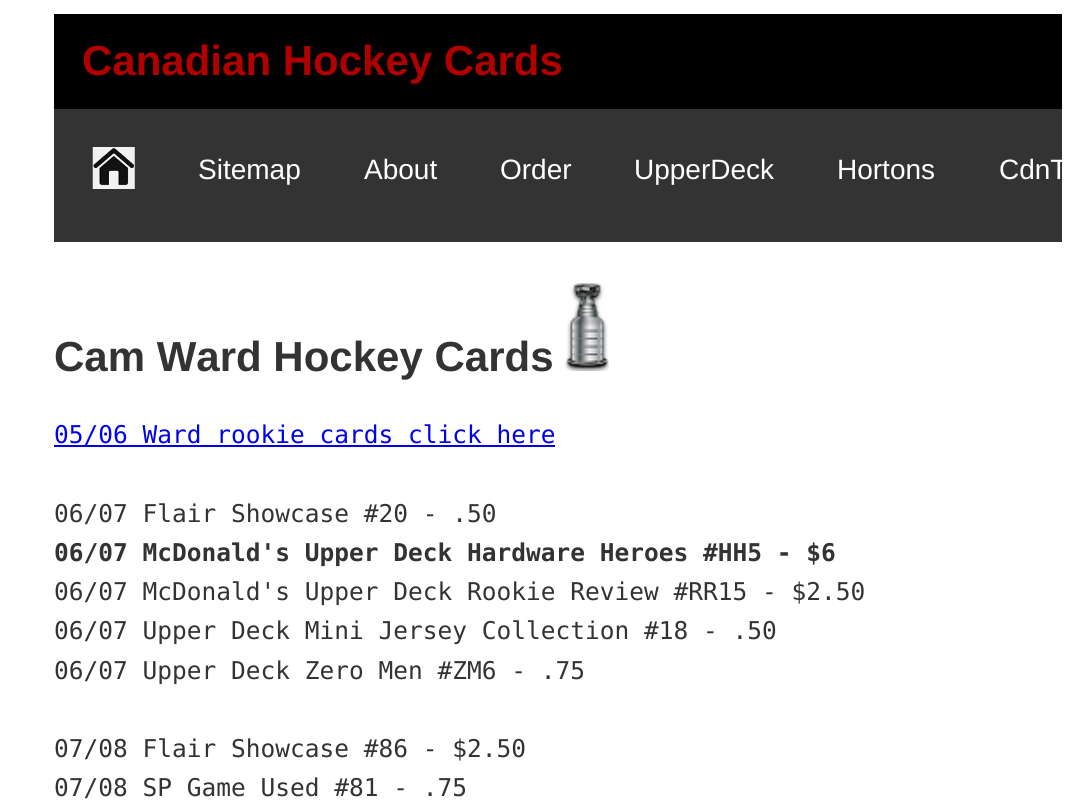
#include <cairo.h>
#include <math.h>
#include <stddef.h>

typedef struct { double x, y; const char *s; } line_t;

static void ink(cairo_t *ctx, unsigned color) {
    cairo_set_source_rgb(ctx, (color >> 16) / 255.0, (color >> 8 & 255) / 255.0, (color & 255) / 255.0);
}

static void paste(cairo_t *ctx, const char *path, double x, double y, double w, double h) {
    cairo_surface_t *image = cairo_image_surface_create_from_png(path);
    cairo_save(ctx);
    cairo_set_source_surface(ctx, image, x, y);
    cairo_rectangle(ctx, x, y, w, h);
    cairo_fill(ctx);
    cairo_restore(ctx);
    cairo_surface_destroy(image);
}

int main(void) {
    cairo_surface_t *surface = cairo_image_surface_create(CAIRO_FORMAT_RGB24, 1075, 805);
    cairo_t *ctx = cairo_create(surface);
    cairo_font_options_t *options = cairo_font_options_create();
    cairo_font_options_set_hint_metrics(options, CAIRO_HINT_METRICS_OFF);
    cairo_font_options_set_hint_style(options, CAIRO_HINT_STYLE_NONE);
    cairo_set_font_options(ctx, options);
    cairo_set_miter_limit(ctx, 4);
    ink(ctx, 0xFFFFFF);
    cairo_paint(ctx);
    ink(ctx, 0x000000);
    cairo_rectangle(ctx, 54, 14, 1008, 95);
    cairo_fill(ctx);
    cairo_select_font_face(ctx, "Liberation Sans", CAIRO_FONT_SLANT_NORMAL, CAIRO_FONT_WEIGHT_BOLD);
    cairo_set_font_size(ctx, 42);
    ink(ctx, 0xB00000);
    cairo_move_to(ctx, 82, 75);
    cairo_show_text(ctx, "Canadian Hockey Cards");
    ink(ctx, 0x333333);
    cairo_rectangle(ctx, 54, 109, 1008, 133);
    cairo_fill(ctx);
    paste(ctx, "media/1.png", 92, 147, 43, 42);
    cairo_select_font_face(ctx, "Liberation Sans", CAIRO_FONT_SLANT_NORMAL, CAIRO_FONT_WEIGHT_NORMAL);
    cairo_set_font_size(ctx, 28);
    ink(ctx, 0xFFFFFF);
    {
        static const line_t items[] = {
            {198, 179, "Sitemap"},
            {364, 179, "About"},
            {500, 179, "Order"},
            {634, 179, "UpperDeck"},
            {837, 179, "Hortons"},
        };
        for (size_t i = 0; i < sizeof items / sizeof *items; i++) {
            cairo_move_to(ctx, items[i].x, items[i].y);
            cairo_show_text(ctx, items[i].s);
        }
    }
    cairo_save(ctx);
    cairo_rectangle(ctx, 54, 109, 1008, 133);
    cairo_clip(ctx);
    cairo_move_to(ctx, 999, 179);
    cairo_show_text(ctx, "CdnT");
    cairo_restore(ctx);
    cairo_select_font_face(ctx, "Liberation Sans", CAIRO_FONT_SLANT_NORMAL, CAIRO_FONT_WEIGHT_BOLD);
    cairo_set_font_size(ctx, 42);
    ink(ctx, 0x333333);
    cairo_move_to(ctx, 54, 371);
    cairo_show_text(ctx, "Cam Ward Hockey Cards");
    paste(ctx, "media/2.png", 565, 283, 44, 88);
    ink(ctx, 0x0000EE);
    cairo_rectangle(ctx, 54, 445, 501, 2);
    cairo_fill(ctx);
    cairo_select_font_face(ctx, "DejaVu Sans Mono", CAIRO_FONT_SLANT_NORMAL, CAIRO_FONT_WEIGHT_NORMAL);
    cairo_set_font_size(ctx, 24.5);
    cairo_move_to(ctx, 54, 443);
    cairo_show_text(ctx, "05/06 Ward rookie cards click here");
    ink(ctx, 0x333333);
    cairo_move_to(ctx, 54, 522);
    cairo_show_text(ctx, "06/07 Flair Showcase #20 - .50");
    cairo_select_font_face(ctx, "DejaVu Sans Mono", CAIRO_FONT_SLANT_NORMAL, CAIRO_FONT_WEIGHT_BOLD);
    cairo_move_to(ctx, 54, 561);
    cairo_show_text(ctx, "06/07 McDonald's Upper Deck Hardware Heroes #HH5 - $6");
    cairo_select_font_face(ctx, "DejaVu Sans Mono", CAIRO_FONT_SLANT_NORMAL, CAIRO_FONT_WEIGHT_NORMAL);
    {
        static const line_t items[] = {
            {54, 600, "06/07 McDonald's Upper Deck Rookie Review #RR15 - $2.50"},
            {54, 639, "06/07 Upper Deck Mini Jersey Collection #18 - .50"},
            {54, 679, "06/07 Upper Deck Zero Men #ZM6 - .75"},
            {54, 757, "07/08 Flair Showcase #86 - $2.50"},
            {54, 796, "07/08 SP Game Used #81 - .75"},
        };
        for (size_t i = 0; i < sizeof items / sizeof *items; i++) {
            cairo_move_to(ctx, items[i].x, items[i].y);
            cairo_show_text(ctx, items[i].s);
        }
    }
    cairo_surface_write_to_png(surface, "image.png");
    cairo_font_options_destroy(options);
    cairo_destroy(ctx);
    cairo_surface_destroy(surface);
    return 0;
}
